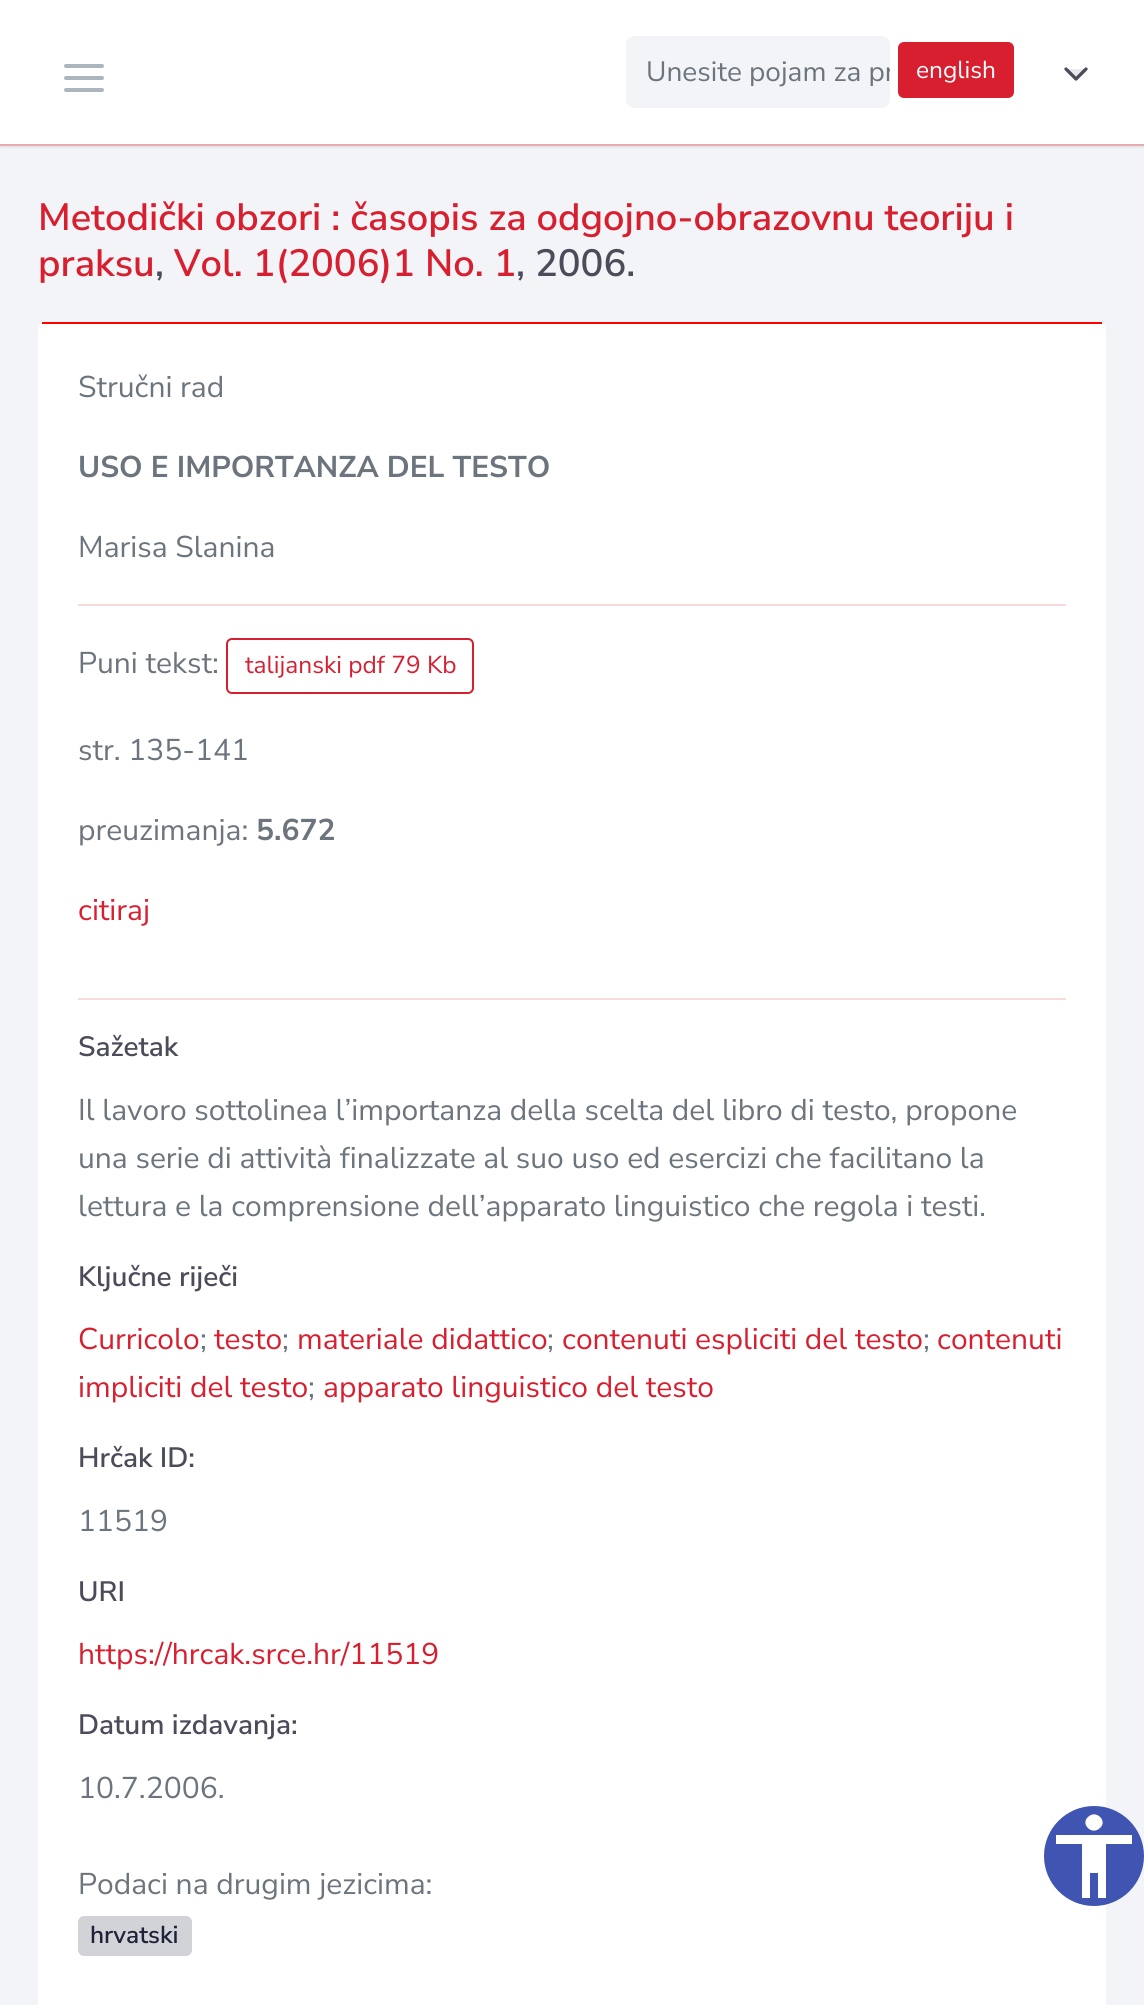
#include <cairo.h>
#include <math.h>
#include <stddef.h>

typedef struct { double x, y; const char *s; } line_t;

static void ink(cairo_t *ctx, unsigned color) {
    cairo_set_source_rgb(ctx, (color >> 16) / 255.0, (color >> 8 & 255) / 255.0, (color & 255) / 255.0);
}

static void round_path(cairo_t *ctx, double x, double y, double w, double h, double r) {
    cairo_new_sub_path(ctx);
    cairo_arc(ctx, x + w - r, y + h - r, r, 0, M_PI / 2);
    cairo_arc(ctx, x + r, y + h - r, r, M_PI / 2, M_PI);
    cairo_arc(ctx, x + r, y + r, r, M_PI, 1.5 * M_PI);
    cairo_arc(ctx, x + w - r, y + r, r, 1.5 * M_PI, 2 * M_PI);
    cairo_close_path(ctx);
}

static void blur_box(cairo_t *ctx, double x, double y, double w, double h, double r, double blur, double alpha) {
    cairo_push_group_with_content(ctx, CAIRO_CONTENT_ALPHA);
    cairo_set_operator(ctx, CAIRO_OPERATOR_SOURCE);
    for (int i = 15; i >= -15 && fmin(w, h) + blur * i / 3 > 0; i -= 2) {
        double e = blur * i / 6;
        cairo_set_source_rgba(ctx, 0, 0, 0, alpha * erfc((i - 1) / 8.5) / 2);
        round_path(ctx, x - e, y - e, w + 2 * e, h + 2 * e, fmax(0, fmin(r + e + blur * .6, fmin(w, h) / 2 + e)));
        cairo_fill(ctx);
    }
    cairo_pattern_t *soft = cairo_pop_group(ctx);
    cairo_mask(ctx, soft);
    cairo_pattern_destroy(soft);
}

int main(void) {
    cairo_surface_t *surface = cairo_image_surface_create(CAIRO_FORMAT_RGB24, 1144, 2005);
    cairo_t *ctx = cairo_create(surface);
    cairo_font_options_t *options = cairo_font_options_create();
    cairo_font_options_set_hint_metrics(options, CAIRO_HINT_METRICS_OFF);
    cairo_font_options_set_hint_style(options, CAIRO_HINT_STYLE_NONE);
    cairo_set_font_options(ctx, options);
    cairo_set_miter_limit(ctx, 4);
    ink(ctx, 0xF3F4F7);
    cairo_paint(ctx);
    ink(ctx, 0x4B4B5A);
    blur_box(ctx, 0, 146, 1144, 2, 0, 0.5, 0.07);
    ink(ctx, 0xF1B1B6);
    cairo_rectangle(ctx, 0, 144, 1144, 2);
    cairo_fill(ctx);
    ink(ctx, 0x4B4B5A);
    blur_box(ctx, 0, 2, 1144, 144, 0, 0.5, 0.07);
    ink(ctx, 0xFFFFFF);
    cairo_rectangle(ctx, 0, 0, 1144, 144);
    cairo_fill(ctx);
    cairo_new_path(ctx);
    cairo_move_to(ctx, 66, 78);
    cairo_line_to(ctx, 102, 78);
    cairo_move_to(ctx, 66, 66);
    cairo_line_to(ctx, 102, 66);
    cairo_move_to(ctx, 66, 90);
    cairo_line_to(ctx, 102, 90);
    ink(ctx, 0xADB5BD);
    cairo_set_line_width(ctx, 4);
    cairo_set_line_cap(ctx, CAIRO_LINE_CAP_ROUND);
    cairo_set_line_join(ctx, CAIRO_LINE_JOIN_ROUND);
    cairo_stroke(ctx);
    ink(ctx, 0xF3F4F7);
    round_path(ctx, 626, 36, 264, 72, 8);
    cairo_fill(ctx);
    cairo_save(ctx);
    round_path(ctx, 626, 36, 264, 72, 8);
    cairo_clip(ctx);
    cairo_select_font_face(ctx, "Nunito Sans", CAIRO_FONT_SLANT_NORMAL, CAIRO_FONT_WEIGHT_NORMAL);
    cairo_set_font_size(ctx, 28);
    ink(ctx, 0x6C757D);
    cairo_move_to(ctx, 646, 81);
    cairo_show_text(ctx, "Unesite pojam za pr");
    cairo_restore(ctx);
    ink(ctx, 0xD81F30);
    round_path(ctx, 899, 43, 114, 54, 5);
    cairo_fill_preserve(ctx);
    cairo_set_line_width(ctx, 2);
    cairo_set_line_cap(ctx, CAIRO_LINE_CAP_BUTT);
    cairo_set_line_join(ctx, CAIRO_LINE_JOIN_MITER);
    cairo_stroke(ctx);
    cairo_select_font_face(ctx, "Nunito Sans", CAIRO_FONT_SLANT_NORMAL, CAIRO_FONT_WEIGHT_NORMAL);
    cairo_set_font_size(ctx, 24.5);
    ink(ctx, 0xFFFFFF);
    cairo_move_to(ctx, 916, 78);
    cairo_show_text(ctx, "english");
    ink(ctx, 0xE9E9EB);
    cairo_new_path(ctx);
    cairo_move_to(ctx, 1066, 69);
    cairo_line_to(ctx, 1076, 79);
    cairo_line_to(ctx, 1086, 69);
    cairo_fill_preserve(ctx);
    ink(ctx, 0x4B4B5A);
    cairo_set_line_width(ctx, 3.3);
    cairo_set_line_cap(ctx, CAIRO_LINE_CAP_ROUND);
    cairo_set_line_join(ctx, CAIRO_LINE_JOIN_ROUND);
    cairo_stroke(ctx);
    cairo_select_font_face(ctx, "Nunito Sans SemiBold", CAIRO_FONT_SLANT_NORMAL, CAIRO_FONT_WEIGHT_NORMAL);
    cairo_set_font_size(ctx, 38);
    ink(ctx, 0xD81F30);
    cairo_move_to(ctx, 38, 230);
    cairo_show_text(ctx, "Metodički obzori : časopis za odgojno-obrazovnu teoriju i");
    cairo_move_to(ctx, 38, 276);
    cairo_show_text(ctx, "praksu");
    ink(ctx, 0x4B4B5A);
    cairo_move_to(ctx, 155, 276);
    cairo_show_text(ctx, ",");
    ink(ctx, 0xD81F30);
    cairo_move_to(ctx, 174, 276);
    cairo_show_text(ctx, "Vol. 1(2006)1 No. 1");
    ink(ctx, 0x4B4B5A);
    cairo_move_to(ctx, 516, 276);
    cairo_show_text(ctx, ", 2006.");
    ink(ctx, 0xFFFFFF);
    round_path(ctx, 38, 322, 1068, 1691, 8);
    cairo_fill(ctx);
    ink(ctx, 0xFF0000);
    cairo_rectangle(ctx, 42, 322, 1060, 2);
    cairo_fill(ctx);
    cairo_select_font_face(ctx, "Nunito Sans", CAIRO_FONT_SLANT_NORMAL, CAIRO_FONT_WEIGHT_NORMAL);
    cairo_set_font_size(ctx, 30);
    ink(ctx, 0x6C757D);
    cairo_move_to(ctx, 78, 397);
    cairo_show_text(ctx, "Stručni rad");
    cairo_select_font_face(ctx, "Nunito Sans", CAIRO_FONT_SLANT_NORMAL, CAIRO_FONT_WEIGHT_BOLD);
    cairo_move_to(ctx, 78, 477);
    cairo_show_text(ctx, "USO E IMPORTANZA DEL TESTO");
    cairo_select_font_face(ctx, "Nunito Sans", CAIRO_FONT_SLANT_NORMAL, CAIRO_FONT_WEIGHT_NORMAL);
    cairo_move_to(ctx, 78, 557);
    cairo_show_text(ctx, "Marisa Slanina");
    ink(ctx, 0xF8D9DC);
    cairo_rectangle(ctx, 78, 604, 988, 2);
    cairo_fill(ctx);
    ink(ctx, 0x6C757D);
    cairo_move_to(ctx, 78, 673);
    cairo_show_text(ctx, "Puni tekst:");
    round_path(ctx, 227, 639, 246, 54, 5);
    ink(ctx, 0xD81F30);
    cairo_set_line_width(ctx, 2);
    cairo_set_line_cap(ctx, CAIRO_LINE_CAP_BUTT);
    cairo_set_line_join(ctx, CAIRO_LINE_JOIN_MITER);
    cairo_stroke(ctx);
    cairo_set_font_size(ctx, 24.5);
    cairo_move_to(ctx, 245, 673);
    cairo_show_text(ctx, "talijanski pdf 79 Kb");
    cairo_set_font_size(ctx, 30);
    ink(ctx, 0x6C757D);
    cairo_move_to(ctx, 78, 760);
    cairo_show_text(ctx, "str. 135-141");
    cairo_move_to(ctx, 78, 840);
    cairo_show_text(ctx, "preuzimanja:");
    cairo_select_font_face(ctx, "Nunito Sans", CAIRO_FONT_SLANT_NORMAL, CAIRO_FONT_WEIGHT_BOLD);
    cairo_move_to(ctx, 256, 840);
    cairo_show_text(ctx, "5.672");
    cairo_select_font_face(ctx, "Nunito Sans", CAIRO_FONT_SLANT_NORMAL, CAIRO_FONT_WEIGHT_NORMAL);
    ink(ctx, 0xD81F30);
    cairo_move_to(ctx, 78, 920);
    cairo_show_text(ctx, "citiraj");
    ink(ctx, 0xF8D9DC);
    cairo_rectangle(ctx, 78, 998, 988, 2);
    cairo_fill(ctx);
    cairo_select_font_face(ctx, "Nunito Sans SemiBold", CAIRO_FONT_SLANT_NORMAL, CAIRO_FONT_WEIGHT_NORMAL);
    cairo_set_font_size(ctx, 28);
    ink(ctx, 0x4B4B5A);
    cairo_move_to(ctx, 78, 1056);
    cairo_show_text(ctx, "Sažetak");
    cairo_select_font_face(ctx, "Nunito Sans", CAIRO_FONT_SLANT_NORMAL, CAIRO_FONT_WEIGHT_NORMAL);
    cairo_set_font_size(ctx, 30);
    ink(ctx, 0x6C757D);
    {
        static const line_t items[] = {
            {78, 1120, "Il lavoro sottolinea l’importanza della scelta del libro di testo, propone"},
            {78, 1168, "una serie di attività finalizzate al suo uso ed esercizi che facilitano la"},
            {78, 1216, "lettura e la comprensione dell’apparato linguistico che regola i testi."},
        };
        for (size_t i = 0; i < sizeof items / sizeof *items; i++) {
            cairo_move_to(ctx, items[i].x, items[i].y);
            cairo_show_text(ctx, items[i].s);
        }
    }
    cairo_select_font_face(ctx, "Nunito Sans SemiBold", CAIRO_FONT_SLANT_NORMAL, CAIRO_FONT_WEIGHT_NORMAL);
    cairo_set_font_size(ctx, 28);
    ink(ctx, 0x4B4B5A);
    cairo_move_to(ctx, 78, 1286);
    cairo_show_text(ctx, "Ključne riječi");
    cairo_select_font_face(ctx, "Nunito Sans", CAIRO_FONT_SLANT_NORMAL, CAIRO_FONT_WEIGHT_NORMAL);
    cairo_set_font_size(ctx, 30);
    ink(ctx, 0xD81F30);
    cairo_move_to(ctx, 78, 1349);
    cairo_show_text(ctx, "Curricolo");
    ink(ctx, 0x6C757D);
    cairo_move_to(ctx, 200, 1349);
    cairo_show_text(ctx, ";");
    ink(ctx, 0xD81F30);
    cairo_move_to(ctx, 214, 1349);
    cairo_show_text(ctx, "testo");
    ink(ctx, 0x6C757D);
    cairo_move_to(ctx, 282, 1349);
    cairo_show_text(ctx, ";");
    ink(ctx, 0xD81F30);
    cairo_move_to(ctx, 297, 1349);
    cairo_show_text(ctx, "materiale didattico");
    ink(ctx, 0x6C757D);
    cairo_move_to(ctx, 547, 1349);
    cairo_show_text(ctx, ";");
    ink(ctx, 0xD81F30);
    cairo_move_to(ctx, 562, 1349);
    cairo_show_text(ctx, "contenuti espliciti del testo");
    ink(ctx, 0x6C757D);
    cairo_move_to(ctx, 923, 1349);
    cairo_show_text(ctx, ";");
    ink(ctx, 0xD81F30);
    cairo_move_to(ctx, 937, 1349);
    cairo_show_text(ctx, "contenuti");
    cairo_move_to(ctx, 78, 1397);
    cairo_show_text(ctx, "impliciti del testo");
    ink(ctx, 0x6C757D);
    cairo_move_to(ctx, 308, 1397);
    cairo_show_text(ctx, ";");
    ink(ctx, 0xD81F30);
    cairo_move_to(ctx, 323, 1397);
    cairo_show_text(ctx, "apparato linguistico del testo");
    cairo_select_font_face(ctx, "Nunito Sans SemiBold", CAIRO_FONT_SLANT_NORMAL, CAIRO_FONT_WEIGHT_NORMAL);
    cairo_set_font_size(ctx, 28);
    ink(ctx, 0x4B4B5A);
    cairo_move_to(ctx, 78, 1467);
    cairo_show_text(ctx, "Hrčak ID:");
    cairo_select_font_face(ctx, "Nunito Sans", CAIRO_FONT_SLANT_NORMAL, CAIRO_FONT_WEIGHT_NORMAL);
    cairo_set_font_size(ctx, 30);
    ink(ctx, 0x6C757D);
    cairo_move_to(ctx, 78, 1531);
    cairo_show_text(ctx, "11519");
    cairo_select_font_face(ctx, "Nunito Sans SemiBold", CAIRO_FONT_SLANT_NORMAL, CAIRO_FONT_WEIGHT_NORMAL);
    cairo_set_font_size(ctx, 28);
    ink(ctx, 0x4B4B5A);
    cairo_move_to(ctx, 78, 1601);
    cairo_show_text(ctx, "URI");
    cairo_select_font_face(ctx, "Nunito Sans", CAIRO_FONT_SLANT_NORMAL, CAIRO_FONT_WEIGHT_NORMAL);
    cairo_set_font_size(ctx, 30);
    ink(ctx, 0xD81F30);
    cairo_move_to(ctx, 78, 1664);
    cairo_show_text(ctx, "https://hrcak.srce.hr/11519");
    cairo_select_font_face(ctx, "Nunito Sans SemiBold", CAIRO_FONT_SLANT_NORMAL, CAIRO_FONT_WEIGHT_NORMAL);
    cairo_set_font_size(ctx, 28);
    ink(ctx, 0x4B4B5A);
    cairo_move_to(ctx, 78, 1734);
    cairo_show_text(ctx, "Datum izdavanja:");
    cairo_select_font_face(ctx, "Nunito Sans", CAIRO_FONT_SLANT_NORMAL, CAIRO_FONT_WEIGHT_NORMAL);
    cairo_set_font_size(ctx, 30);
    ink(ctx, 0x6C757D);
    cairo_move_to(ctx, 78, 1798);
    cairo_show_text(ctx, "10.7.2006.");
    cairo_move_to(ctx, 78, 1894);
    cairo_show_text(ctx, "Podaci na drugim jezicima:");
    ink(ctx, 0xD2D3D7);
    round_path(ctx, 78, 1916, 114, 40, 6);
    cairo_fill(ctx);
    cairo_select_font_face(ctx, "Nunito Sans SemiBold", CAIRO_FONT_SLANT_NORMAL, CAIRO_FONT_WEIGHT_NORMAL);
    cairo_set_font_size(ctx, 24.5);
    ink(ctx, 0x1E2139);
    cairo_move_to(ctx, 90, 1943);
    cairo_show_text(ctx, "hrvatski");
    ink(ctx, 0x4054B2);
    cairo_new_path(ctx);
    cairo_arc(ctx, 1094, 1856, 50, 0, 2 * M_PI);
    cairo_fill(ctx);
    ink(ctx, 0xFFFFFF);
    cairo_new_path(ctx);
    cairo_move_to(ctx, 1132, 1844);
    cairo_line_to(ctx, 1106, 1844);
    cairo_line_to(ctx, 1106, 1898);
    cairo_line_to(ctx, 1098, 1898);
    cairo_line_to(ctx, 1098, 1873);
    cairo_line_to(ctx, 1090, 1873);
    cairo_line_to(ctx, 1090, 1898);
    cairo_line_to(ctx, 1082, 1898);
    cairo_line_to(ctx, 1082, 1844);
    cairo_line_to(ctx, 1056, 1844);
    cairo_line_to(ctx, 1056, 1835);
    cairo_line_to(ctx, 1132, 1835);
    cairo_close_path(ctx);
    cairo_move_to(ctx, 1088, 1817);
    cairo_curve_to(ctx, 1096, 1809, 1108, 1821, 1100, 1828);
    cairo_curve_to(ctx, 1092, 1836, 1080, 1824, 1088, 1817);
    cairo_close_path(ctx);
    cairo_fill(ctx);
    cairo_surface_write_to_png(surface, "image.png");
    cairo_font_options_destroy(options);
    cairo_destroy(ctx);
    cairo_surface_destroy(surface);
    return 0;
}
